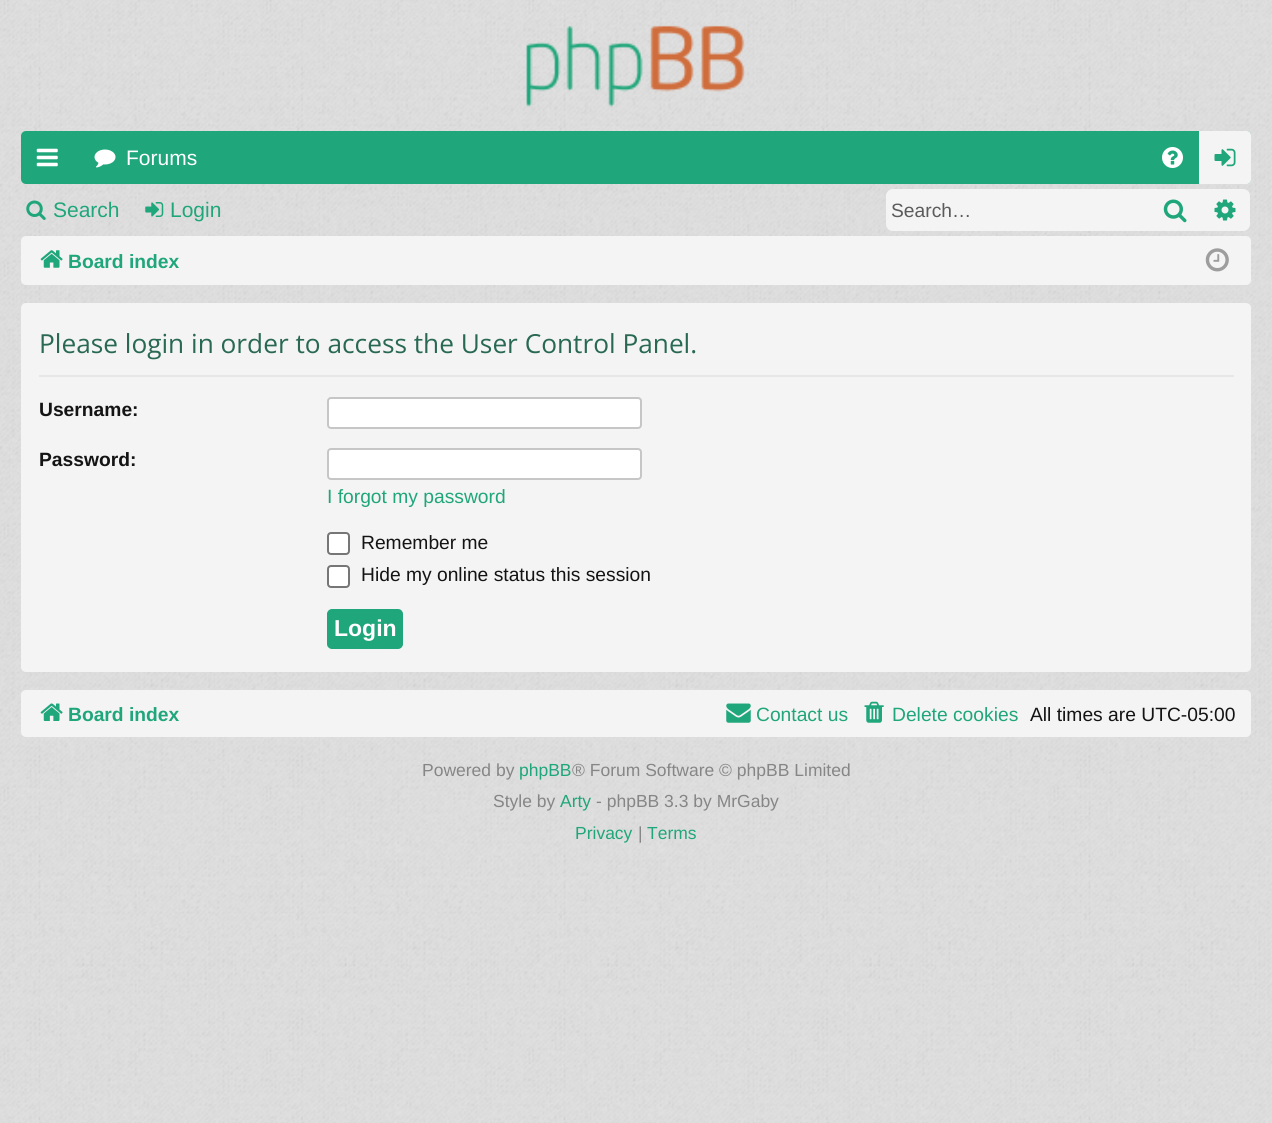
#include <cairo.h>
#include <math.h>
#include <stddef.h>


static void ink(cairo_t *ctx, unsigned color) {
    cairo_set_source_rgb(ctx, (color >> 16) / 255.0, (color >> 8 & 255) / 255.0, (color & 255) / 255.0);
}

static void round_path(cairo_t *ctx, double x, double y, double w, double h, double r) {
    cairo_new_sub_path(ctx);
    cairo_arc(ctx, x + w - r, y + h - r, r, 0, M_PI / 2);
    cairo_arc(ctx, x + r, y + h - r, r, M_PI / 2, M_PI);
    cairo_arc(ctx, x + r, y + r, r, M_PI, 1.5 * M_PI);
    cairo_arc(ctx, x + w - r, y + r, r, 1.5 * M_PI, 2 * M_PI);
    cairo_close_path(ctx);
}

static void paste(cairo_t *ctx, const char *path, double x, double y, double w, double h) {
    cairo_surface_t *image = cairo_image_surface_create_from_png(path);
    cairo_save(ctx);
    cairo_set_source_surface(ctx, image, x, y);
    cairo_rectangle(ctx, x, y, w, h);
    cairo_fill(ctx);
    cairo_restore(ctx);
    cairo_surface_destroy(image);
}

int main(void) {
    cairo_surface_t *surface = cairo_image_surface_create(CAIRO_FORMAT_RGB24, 1272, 1123);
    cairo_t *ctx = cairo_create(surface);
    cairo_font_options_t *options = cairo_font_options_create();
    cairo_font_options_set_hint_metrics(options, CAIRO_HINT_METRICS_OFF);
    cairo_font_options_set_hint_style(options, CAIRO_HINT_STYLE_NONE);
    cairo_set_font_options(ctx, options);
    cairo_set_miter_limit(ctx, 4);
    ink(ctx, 0xE0E0E0);
    cairo_paint(ctx);
    paste(ctx, "media/1.png", 0, 0, 1272, 1123);
    paste(ctx, "media/2.png", 526, 25, 219, 83);
    ink(ctx, 0x1FA67A);
    round_path(ctx, 21, 131, 1230, 53, 5);
    cairo_fill(ctx);
    paste(ctx, "media/3.png", 36, 148, 22, 19);
    paste(ctx, "media/4.png", 94, 149, 22, 19);
    cairo_select_font_face(ctx, "Liberation Sans", CAIRO_FONT_SLANT_NORMAL, CAIRO_FONT_WEIGHT_NORMAL);
    cairo_set_font_size(ctx, 21);
    ink(ctx, 0xFFFFFF);
    cairo_move_to(ctx, 126, 165);
    cairo_show_text(ctx, "Forums");
    paste(ctx, "media/5.png", 1162, 147, 21, 21);
    ink(ctx, 0xF4F4F4);
    cairo_new_path(ctx);
    cairo_move_to(ctx, 1199, 131);
    cairo_line_to(ctx, 1247, 131);
    cairo_curve_to(ctx, 1249, 131, 1251, 133, 1251, 135);
    cairo_line_to(ctx, 1251, 180);
    cairo_curve_to(ctx, 1251, 182, 1249, 184, 1247, 184);
    cairo_line_to(ctx, 1199, 184);
    cairo_close_path(ctx);
    cairo_fill(ctx);
    paste(ctx, "media/6.png", 1214, 148, 22, 19);
    paste(ctx, "media/7.png", 26, 200, 20, 20);
    ink(ctx, 0x1FA67A);
    cairo_move_to(ctx, 53, 217);
    cairo_show_text(ctx, "Search");
    paste(ctx, "media/8.png", 145, 202, 19, 15);
    cairo_move_to(ctx, 170, 217);
    cairo_show_text(ctx, "Login");
    ink(ctx, 0xF4F4F4);
    cairo_new_path(ctx);
    cairo_move_to(ctx, 893, 189);
    cairo_line_to(ctx, 1148, 189);
    cairo_line_to(ctx, 1148, 231);
    cairo_line_to(ctx, 893, 231);
    cairo_curve_to(ctx, 889, 231, 886, 228, 886, 224);
    cairo_line_to(ctx, 886, 196);
    cairo_curve_to(ctx, 886, 192, 889, 189, 893, 189);
    cairo_close_path(ctx);
    cairo_fill(ctx);
    cairo_set_font_size(ctx, 19.25);
    ink(ctx, 0x5B5B5B);
    cairo_move_to(ctx, 891, 217);
    cairo_show_text(ctx, "Search…");
    ink(ctx, 0xF4F4F4);
    cairo_rectangle(ctx, 1148, 189, 53, 42);
    cairo_fill(ctx);
    paste(ctx, "media/9.png", 1163, 199, 24, 24);
    cairo_new_path(ctx);
    cairo_move_to(ctx, 1201, 189);
    cairo_line_to(ctx, 1243, 189);
    cairo_curve_to(ctx, 1247, 189, 1250, 192, 1250, 196);
    cairo_line_to(ctx, 1250, 224);
    cairo_curve_to(ctx, 1250, 228, 1247, 231, 1243, 231);
    cairo_line_to(ctx, 1201, 231);
    cairo_close_path(ctx);
    cairo_fill(ctx);
    paste(ctx, "media/10.png", 1214, 199, 22, 22);
    round_path(ctx, 21, 236, 1230, 49, 5);
    cairo_fill(ctx);
    paste(ctx, "media/11.png", 40, 250, 23, 18);
    cairo_select_font_face(ctx, "Liberation Sans", CAIRO_FONT_SLANT_NORMAL, CAIRO_FONT_WEIGHT_BOLD);
    ink(ctx, 0x1FA67A);
    cairo_move_to(ctx, 68, 268);
    cairo_show_text(ctx, "Board index");
    paste(ctx, "media/12.png", 1205, 248, 24, 24);
    ink(ctx, 0xF4F4F4);
    round_path(ctx, 21, 303, 1230, 369, 5);
    cairo_fill(ctx);
    ink(ctx, 0xE7E7E7);
    cairo_rectangle(ctx, 39, 375, 1195, 2);
    cairo_fill(ctx);
    cairo_select_font_face(ctx, "Open Sans", CAIRO_FONT_SLANT_NORMAL, CAIRO_FONT_WEIGHT_NORMAL);
    cairo_set_font_size(ctx, 26.25);
    ink(ctx, 0x296954);
    cairo_move_to(ctx, 39, 353);
    cairo_show_text(ctx, "Please login in order to access the User Control Panel.");
    cairo_select_font_face(ctx, "Liberation Sans", CAIRO_FONT_SLANT_NORMAL, CAIRO_FONT_WEIGHT_BOLD);
    cairo_set_font_size(ctx, 19.25);
    ink(ctx, 0x141414);
    cairo_move_to(ctx, 39, 416);
    cairo_show_text(ctx, "Username:");
    ink(ctx, 0xFFFFFF);
    round_path(ctx, 328, 398, 313, 30, 3);
    cairo_fill_preserve(ctx);
    ink(ctx, 0xC6C6C6);
    cairo_stroke(ctx);
    ink(ctx, 0x141414);
    cairo_move_to(ctx, 39, 466);
    cairo_show_text(ctx, "Password:");
    ink(ctx, 0xFFFFFF);
    round_path(ctx, 328, 449, 313, 30, 3);
    cairo_fill_preserve(ctx);
    ink(ctx, 0xC6C6C6);
    cairo_stroke(ctx);
    cairo_select_font_face(ctx, "Liberation Sans", CAIRO_FONT_SLANT_NORMAL, CAIRO_FONT_WEIGHT_NORMAL);
    ink(ctx, 0x1FA67A);
    cairo_move_to(ctx, 327, 503);
    cairo_show_text(ctx, "I forgot my password");
    ink(ctx, 0xFFFFFF);
    round_path(ctx, 328, 533, 21, 21, 3);
    cairo_fill_preserve(ctx);
    ink(ctx, 0x767676);
    cairo_stroke(ctx);
    ink(ctx, 0x141414);
    cairo_move_to(ctx, 361, 549);
    cairo_show_text(ctx, "Remember me");
    ink(ctx, 0xFFFFFF);
    round_path(ctx, 328, 566, 21, 21, 3);
    cairo_fill_preserve(ctx);
    ink(ctx, 0x767676);
    cairo_stroke(ctx);
    ink(ctx, 0x141414);
    cairo_move_to(ctx, 361, 581);
    cairo_show_text(ctx, "Hide my online status this session");
    ink(ctx, 0x1FA67A);
    round_path(ctx, 328, 610, 74, 38, 4);
    cairo_fill_preserve(ctx);
    cairo_stroke(ctx);
    cairo_select_font_face(ctx, "Liberation Sans", CAIRO_FONT_SLANT_NORMAL, CAIRO_FONT_WEIGHT_BOLD);
    cairo_set_font_size(ctx, 23);
    ink(ctx, 0xFFFFFF);
    cairo_move_to(ctx, 334, 636);
    cairo_show_text(ctx, "Login");
    ink(ctx, 0xF4F4F4);
    round_path(ctx, 21, 690, 1230, 47, 5);
    cairo_fill(ctx);
    paste(ctx, "media/13.png", 40, 703, 23, 18);
    cairo_set_font_size(ctx, 19.25);
    ink(ctx, 0x1FA67A);
    cairo_move_to(ctx, 68, 721);
    cairo_show_text(ctx, "Board index");
    paste(ctx, "media/14.png", 726, 703, 25, 20);
    cairo_select_font_face(ctx, "Liberation Sans", CAIRO_FONT_SLANT_NORMAL, CAIRO_FONT_WEIGHT_NORMAL);
    cairo_move_to(ctx, 756, 721);
    cairo_show_text(ctx, "Contact us");
    paste(ctx, "media/15.png", 864, 701, 20, 22);
    cairo_move_to(ctx, 892, 721);
    cairo_show_text(ctx, "Delete cookies");
    ink(ctx, 0x141414);
    cairo_move_to(ctx, 1030, 721);
    cairo_show_text(ctx, "All times are UTC-05:00");
    cairo_set_font_size(ctx, 17.5);
    ink(ctx, 0x868686);
    cairo_move_to(ctx, 422, 776);
    cairo_show_text(ctx, "Powered by");
    ink(ctx, 0x1FA67A);
    cairo_move_to(ctx, 519, 776);
    cairo_show_text(ctx, "phpBB");
    ink(ctx, 0x868686);
    cairo_move_to(ctx, 572, 776);
    cairo_show_text(ctx, "® Forum Software © phpBB Limited");
    cairo_move_to(ctx, 493, 807);
    cairo_show_text(ctx, "Style by");
    ink(ctx, 0x1FA67A);
    cairo_move_to(ctx, 560, 807);
    cairo_show_text(ctx, "Arty");
    ink(ctx, 0x868686);
    cairo_move_to(ctx, 596, 807);
    cairo_show_text(ctx, "- phpBB 3.3 by MrGaby");
    ink(ctx, 0x1FA67A);
    cairo_move_to(ctx, 575, 839);
    cairo_show_text(ctx, "Privacy");
    ink(ctx, 0x868686);
    cairo_move_to(ctx, 638, 839);
    cairo_show_text(ctx, "|");
    ink(ctx, 0x1FA67A);
    cairo_move_to(ctx, 647, 839);
    cairo_show_text(ctx, "Terms");
    cairo_surface_write_to_png(surface, "image.png");
    cairo_font_options_destroy(options);
    cairo_destroy(ctx);
    cairo_surface_destroy(surface);
    return 0;
}
